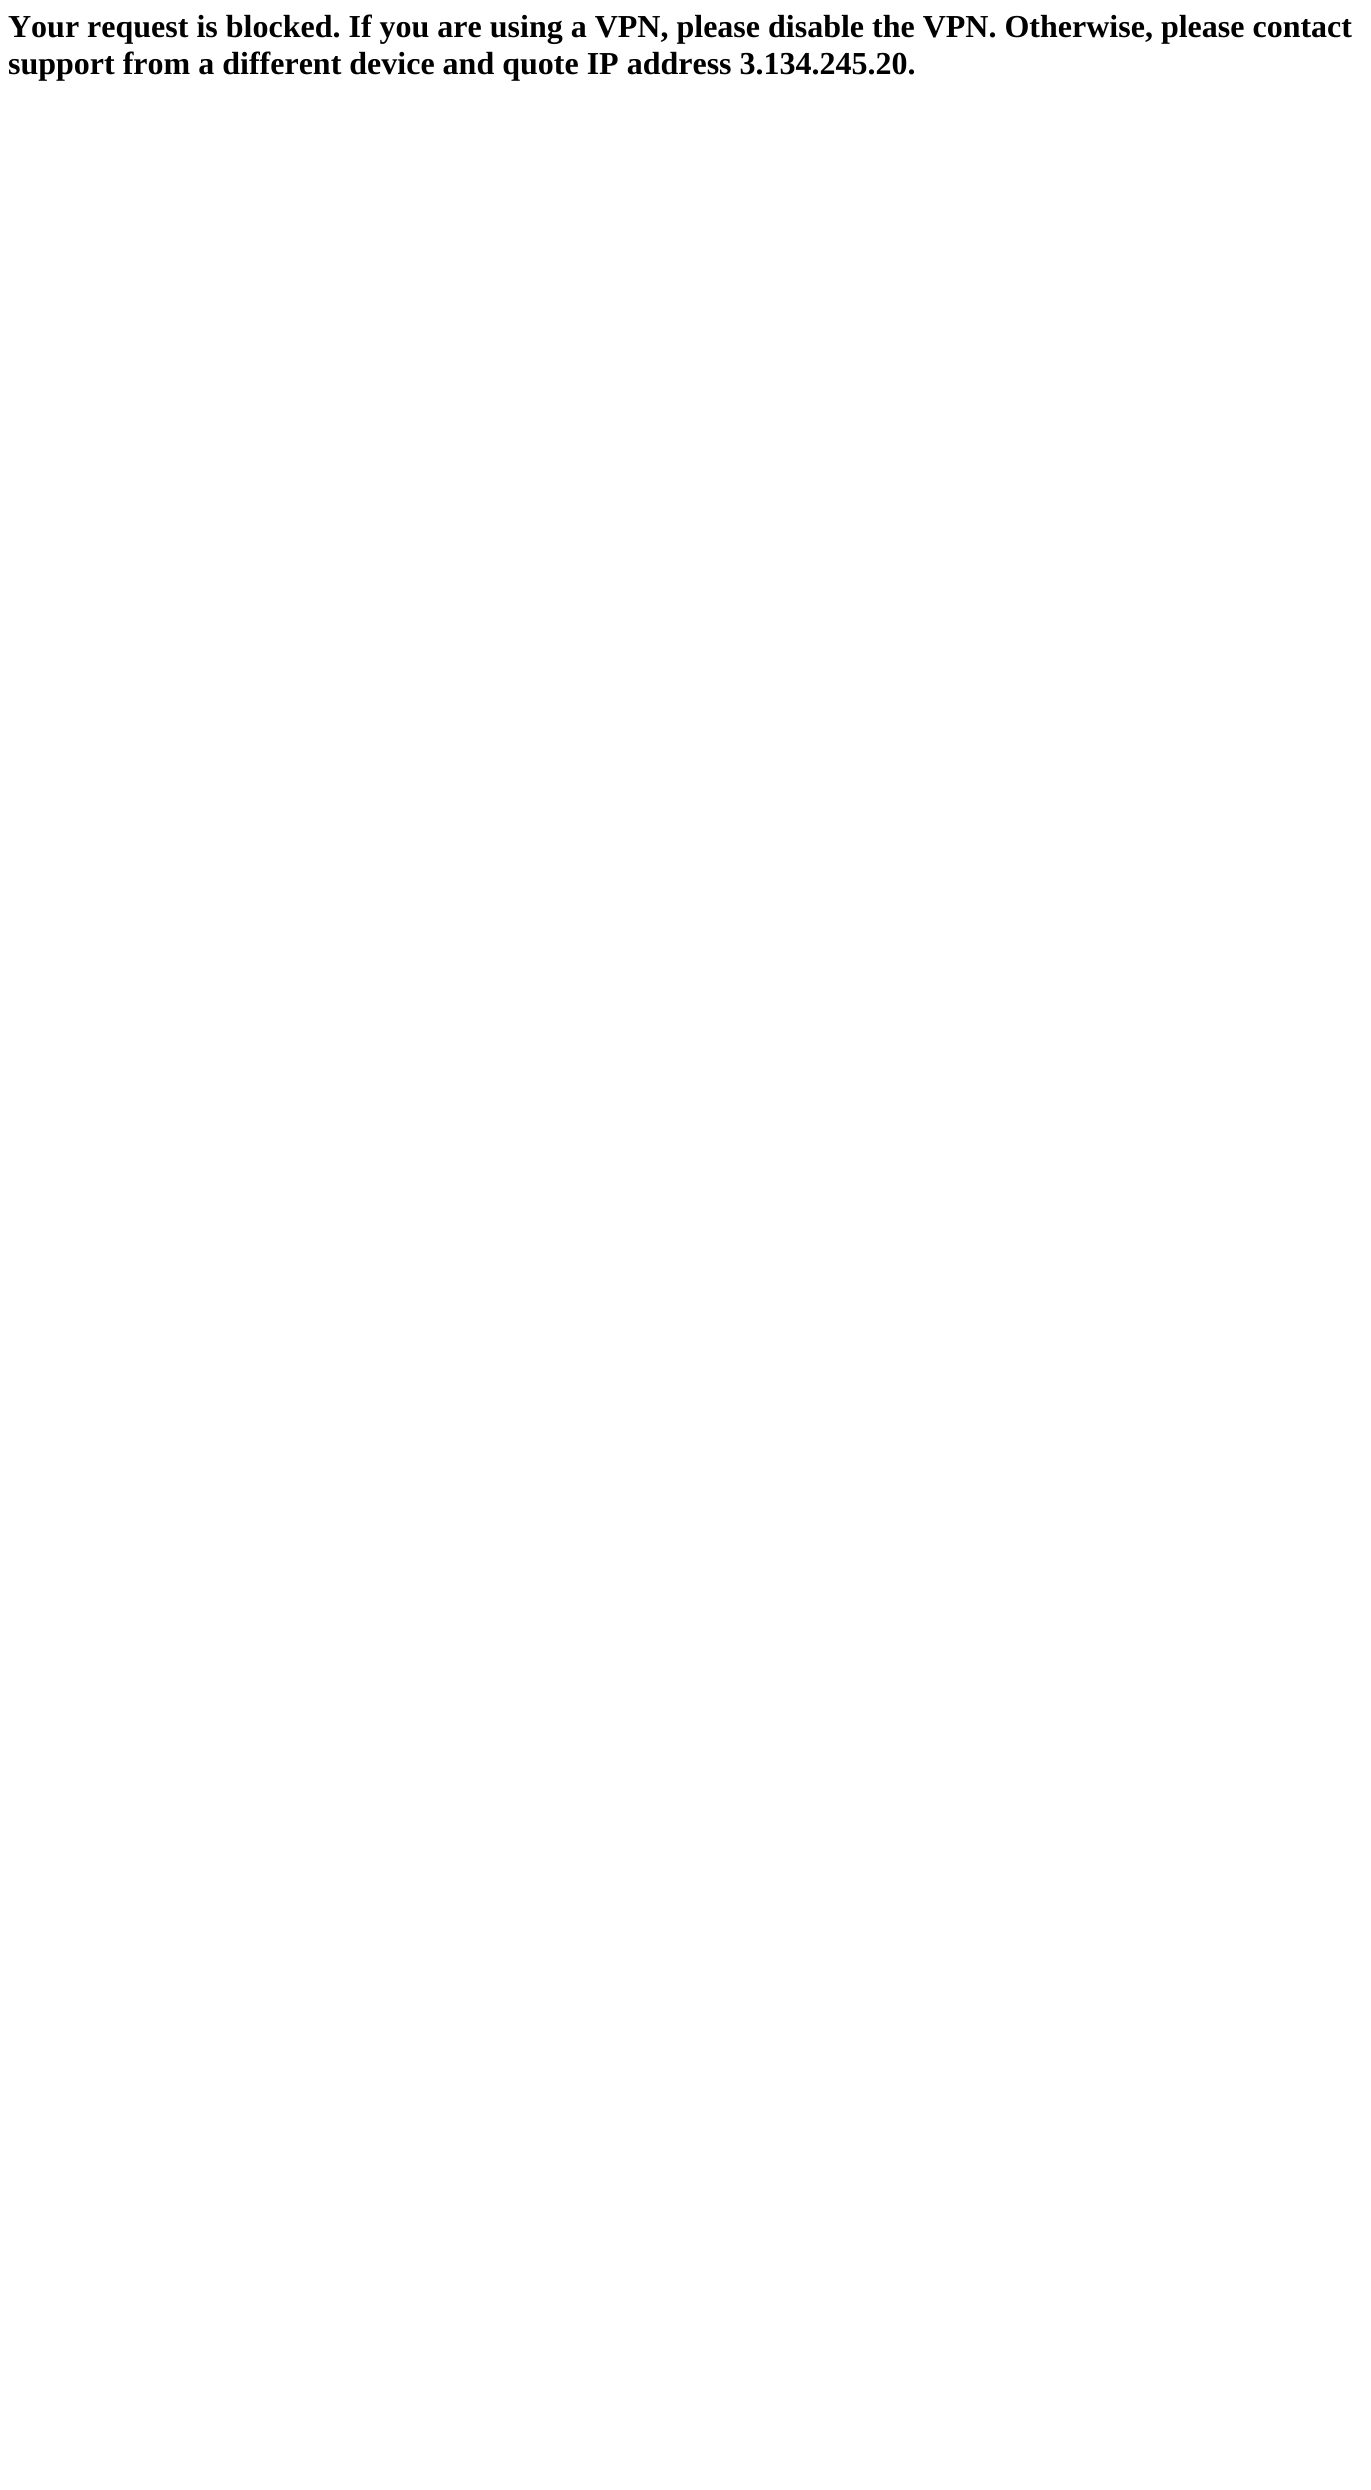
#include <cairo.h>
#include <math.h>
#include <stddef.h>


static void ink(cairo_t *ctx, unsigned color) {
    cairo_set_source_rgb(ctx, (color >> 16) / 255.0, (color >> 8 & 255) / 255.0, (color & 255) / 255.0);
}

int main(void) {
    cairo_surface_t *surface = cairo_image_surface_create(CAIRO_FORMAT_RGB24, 1371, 2490);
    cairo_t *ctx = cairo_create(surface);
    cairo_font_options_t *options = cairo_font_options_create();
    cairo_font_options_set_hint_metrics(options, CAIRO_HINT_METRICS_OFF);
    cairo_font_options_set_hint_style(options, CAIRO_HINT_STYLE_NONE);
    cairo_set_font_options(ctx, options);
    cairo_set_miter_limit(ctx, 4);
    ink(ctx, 0xFFFFFF);
    cairo_paint(ctx);
    cairo_select_font_face(ctx, "Liberation Serif", CAIRO_FONT_SLANT_NORMAL, CAIRO_FONT_WEIGHT_BOLD);
    cairo_set_font_size(ctx, 32);
    ink(ctx, 0x000000);
    cairo_move_to(ctx, 8, 37);
    cairo_show_text(ctx, "Your request is blocked. If you are using a VPN, please disable the VPN. Otherwise, please contact");
    cairo_move_to(ctx, 8, 74);
    cairo_show_text(ctx, "support from a different device and quote IP address 3.134.245.20.");
    cairo_surface_write_to_png(surface, "image.png");
    cairo_font_options_destroy(options);
    cairo_destroy(ctx);
    cairo_surface_destroy(surface);
    return 0;
}
